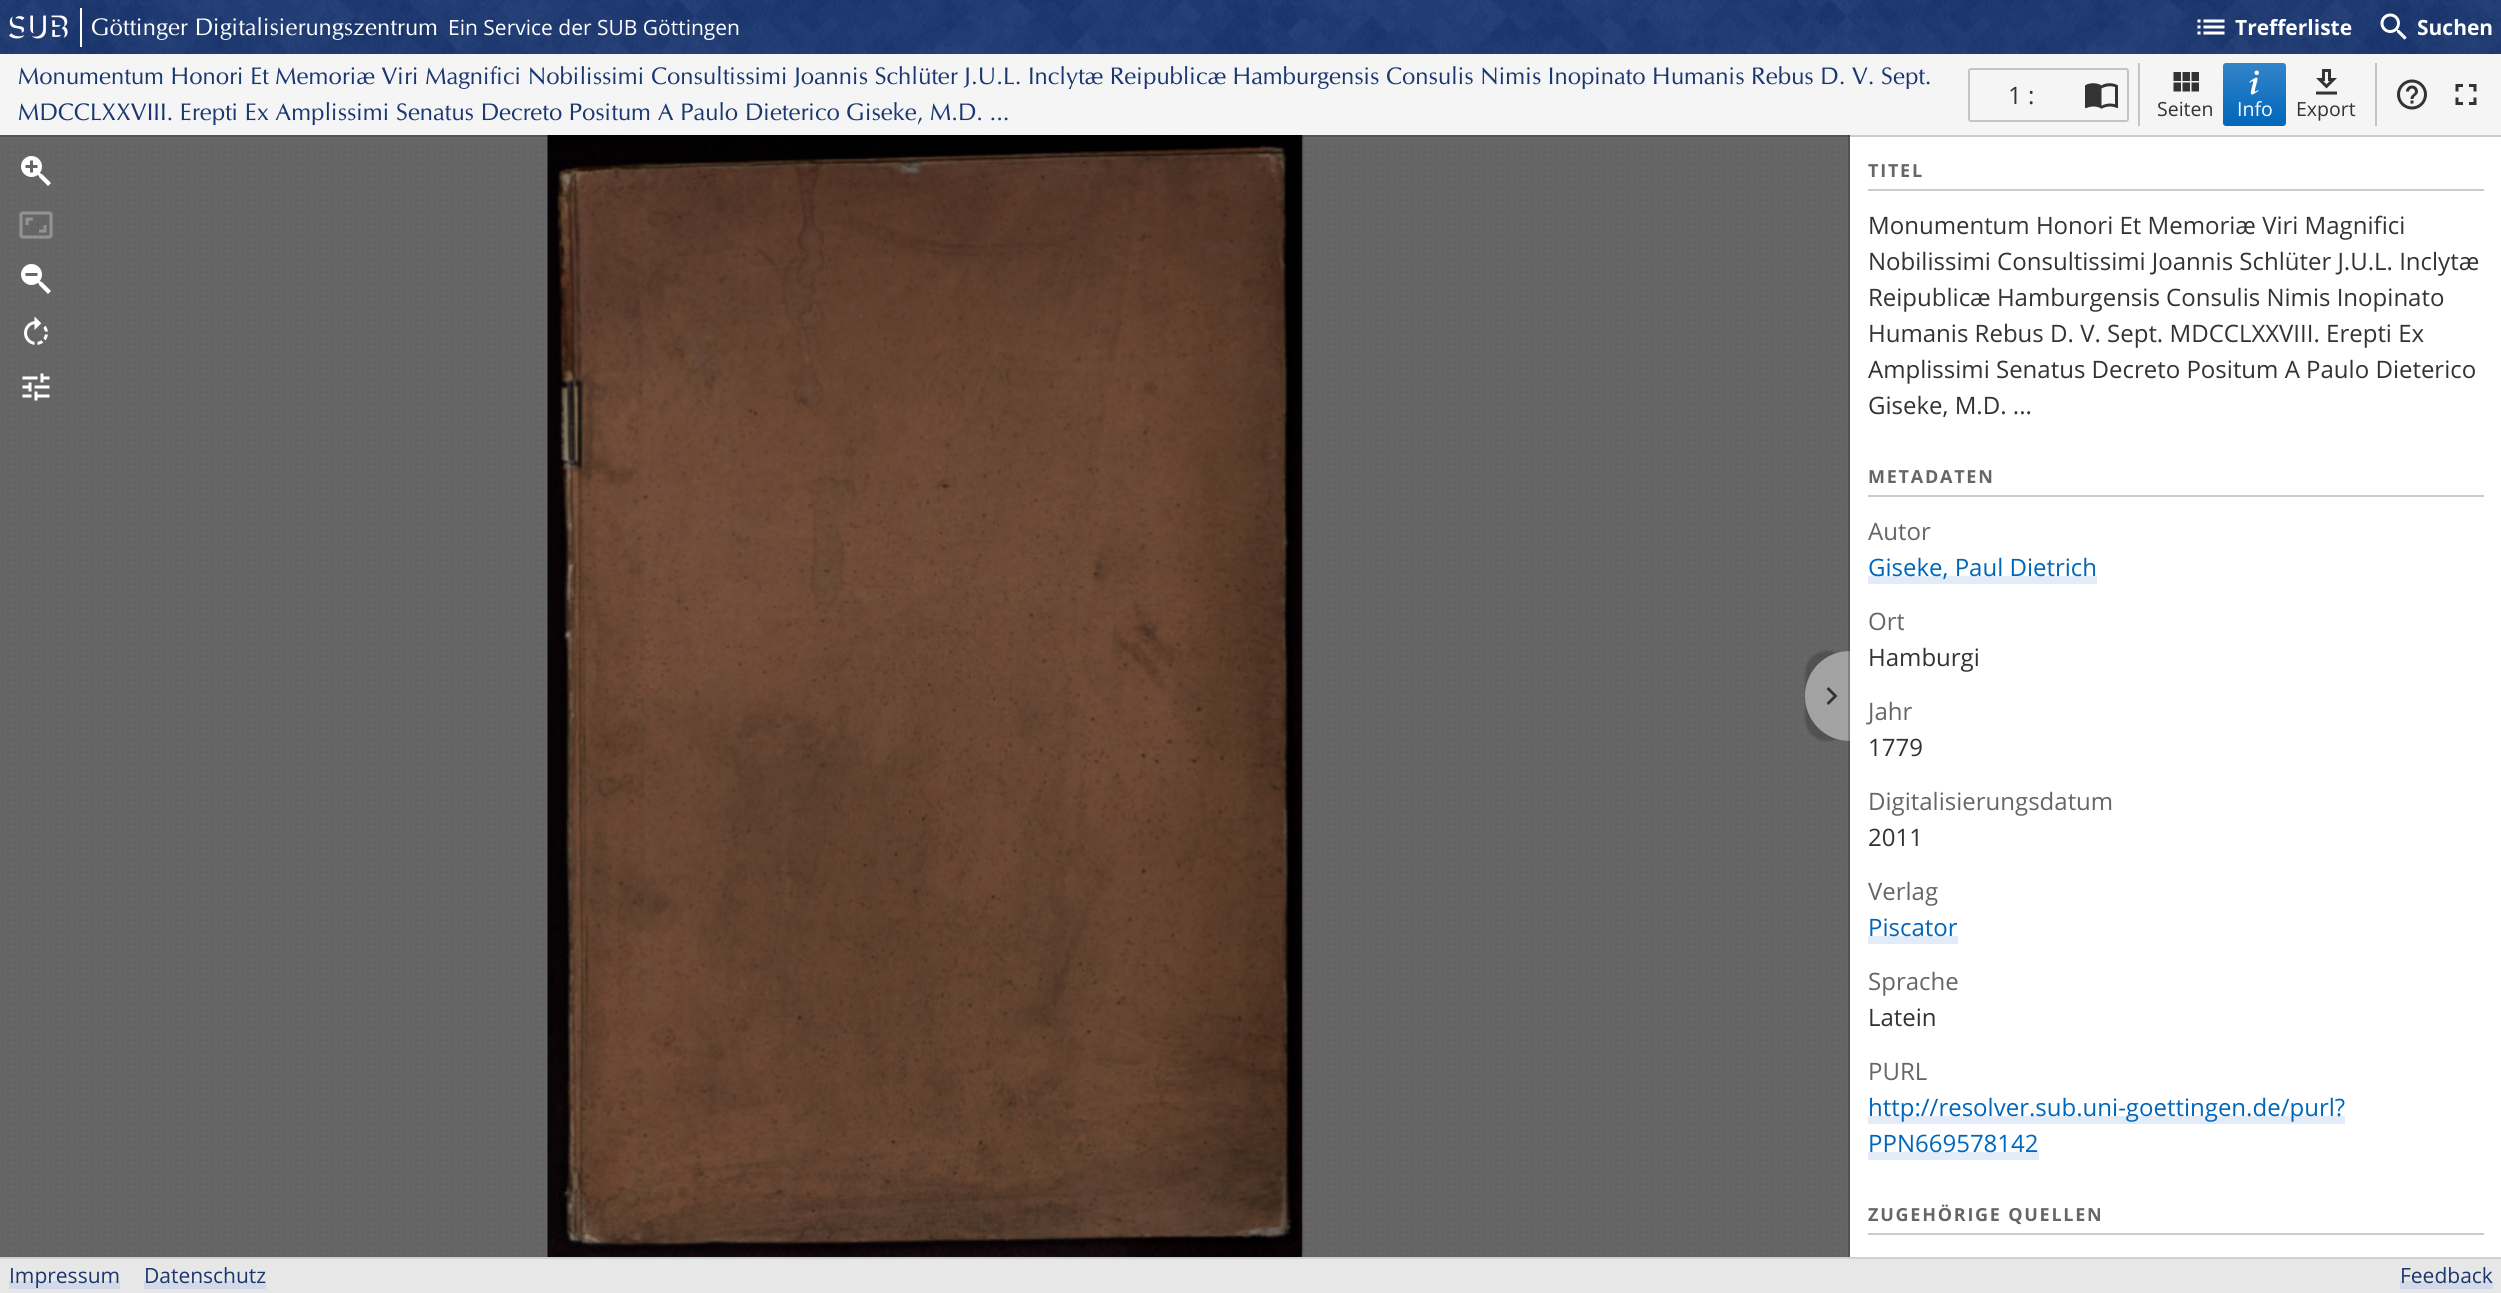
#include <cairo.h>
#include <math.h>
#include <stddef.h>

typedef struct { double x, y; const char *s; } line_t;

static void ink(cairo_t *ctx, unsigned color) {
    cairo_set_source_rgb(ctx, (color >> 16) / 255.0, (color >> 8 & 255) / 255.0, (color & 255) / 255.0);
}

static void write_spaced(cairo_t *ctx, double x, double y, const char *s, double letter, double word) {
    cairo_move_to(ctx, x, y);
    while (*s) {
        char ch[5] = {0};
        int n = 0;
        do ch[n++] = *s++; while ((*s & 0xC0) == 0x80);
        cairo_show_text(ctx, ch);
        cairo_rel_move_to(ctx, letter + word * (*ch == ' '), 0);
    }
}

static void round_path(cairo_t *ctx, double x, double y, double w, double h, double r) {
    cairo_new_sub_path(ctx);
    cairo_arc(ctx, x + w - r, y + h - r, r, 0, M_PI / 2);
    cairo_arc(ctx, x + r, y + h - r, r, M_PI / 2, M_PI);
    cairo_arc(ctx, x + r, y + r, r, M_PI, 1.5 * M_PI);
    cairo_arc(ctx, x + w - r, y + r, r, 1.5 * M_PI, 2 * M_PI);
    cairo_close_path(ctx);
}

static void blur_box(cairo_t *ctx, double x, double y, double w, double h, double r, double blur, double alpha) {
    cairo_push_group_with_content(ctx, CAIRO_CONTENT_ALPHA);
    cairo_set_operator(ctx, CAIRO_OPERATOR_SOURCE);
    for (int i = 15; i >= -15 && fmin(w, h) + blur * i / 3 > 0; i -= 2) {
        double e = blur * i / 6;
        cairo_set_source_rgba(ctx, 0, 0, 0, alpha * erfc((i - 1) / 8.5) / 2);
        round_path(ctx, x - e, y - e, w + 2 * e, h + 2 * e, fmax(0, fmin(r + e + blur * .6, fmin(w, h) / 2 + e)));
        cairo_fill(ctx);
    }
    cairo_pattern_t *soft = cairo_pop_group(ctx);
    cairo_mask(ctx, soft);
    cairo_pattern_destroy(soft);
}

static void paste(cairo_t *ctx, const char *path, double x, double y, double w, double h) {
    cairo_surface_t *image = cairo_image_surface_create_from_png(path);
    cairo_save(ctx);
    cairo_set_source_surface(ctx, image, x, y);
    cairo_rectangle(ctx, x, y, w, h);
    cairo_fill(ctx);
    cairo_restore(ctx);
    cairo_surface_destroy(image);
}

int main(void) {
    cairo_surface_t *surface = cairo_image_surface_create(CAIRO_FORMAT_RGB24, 2501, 1293);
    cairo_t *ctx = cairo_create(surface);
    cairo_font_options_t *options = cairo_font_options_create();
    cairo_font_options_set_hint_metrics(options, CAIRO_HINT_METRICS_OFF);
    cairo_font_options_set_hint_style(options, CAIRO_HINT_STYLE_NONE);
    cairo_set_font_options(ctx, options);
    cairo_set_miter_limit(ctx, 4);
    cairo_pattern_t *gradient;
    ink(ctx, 0xE7E7E7);
    cairo_paint(ctx);
    paste(ctx, "media/1.png", 0, 0, 2501, 54);
    paste(ctx, "media/2.png", 9, 15, 59, 24);
    cairo_select_font_face(ctx, "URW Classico", CAIRO_FONT_SLANT_NORMAL, CAIRO_FONT_WEIGHT_NORMAL);
    cairo_set_font_size(ctx, 24);
    ink(ctx, 0xFFFFFF);
    cairo_move_to(ctx, 91, 35);
    cairo_show_text(ctx, "Göttinger Digitalisierungszentrum");
    cairo_rectangle(ctx, 80, 8, 2, 39);
    cairo_fill(ctx);
    cairo_select_font_face(ctx, "Open Sans", CAIRO_FONT_SLANT_NORMAL, CAIRO_FONT_WEIGHT_NORMAL);
    cairo_set_font_size(ctx, 21);
    cairo_move_to(ctx, 448, 35);
    cairo_show_text(ctx, "Ein Service der SUB Göttingen");
    paste(ctx, "media/3.png", 2197, 19, 28, 16);
    cairo_select_font_face(ctx, "Open Sans", CAIRO_FONT_SLANT_NORMAL, CAIRO_FONT_WEIGHT_BOLD);
    cairo_move_to(ctx, 2235, 35);
    cairo_show_text(ctx, "Trefferliste");
    paste(ctx, "media/4.png", 2380, 13, 27, 27);
    cairo_move_to(ctx, 2417, 35);
    cairo_show_text(ctx, "Suchen");
    ink(ctx, 0x666666);
    cairo_rectangle(ctx, 0, 135, 1850, 1122);
    cairo_fill(ctx);
    paste(ctx, "media/5.png", 1, 139, 1849, 1118);
    paste(ctx, "media/17.png", 547, 135, 757, 1122);
    cairo_save(ctx);
    cairo_set_fill_rule(ctx, CAIRO_FILL_RULE_EVEN_ODD);
    cairo_new_path(ctx);
    cairo_move_to(ctx, 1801, 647);
    cairo_line_to(ctx, 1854, 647);
    cairo_line_to(ctx, 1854, 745);
    cairo_line_to(ctx, 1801, 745);
    cairo_close_path(ctx);
    cairo_move_to(ctx, 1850, 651);
    cairo_line_to(ctx, 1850, 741);
    cairo_curve_to(ctx, 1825, 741, 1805, 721, 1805, 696);
    cairo_curve_to(ctx, 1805, 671, 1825, 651, 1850, 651);
    cairo_close_path(ctx);
    cairo_clip(ctx);
    ink(ctx, 0x000000);
    blur_box(ctx, 1805, 651, 45, 90, 45, 1, 0.2);
    cairo_restore(ctx);
    cairo_set_source_rgba(ctx, 1, 1, 1, 0.4);
    cairo_new_path(ctx);
    cairo_move_to(ctx, 1850, 651);
    cairo_line_to(ctx, 1850, 741);
    cairo_curve_to(ctx, 1825, 741, 1805, 721, 1805, 696);
    cairo_curve_to(ctx, 1805, 671, 1825, 651, 1850, 651);
    cairo_close_path(ctx);
    cairo_fill(ctx);
    cairo_set_source_rgba(ctx, 0, 0, 0, 0.2);
    cairo_rectangle(ctx, 1848, 135, 2, 1122);
    cairo_fill(ctx);
    ink(ctx, 0xFFFFFF);
    cairo_rectangle(ctx, 1850, 135, 651, 1122);
    cairo_fill(ctx);
    cairo_set_source_rgba(ctx, 0, 0, 0, 0.2);
    cairo_rectangle(ctx, 0, 135, 2501, 2);
    cairo_fill(ctx);
    ink(ctx, 0xF5F5F5);
    cairo_rectangle(ctx, 0, 54, 2501, 81);
    cairo_fill(ctx);
    cairo_select_font_face(ctx, "URW Classico", CAIRO_FONT_SLANT_NORMAL, CAIRO_FONT_WEIGHT_NORMAL);
    cairo_set_font_size(ctx, 24);
    ink(ctx, 0x1A3771);
    cairo_move_to(ctx, 18, 84);
    cairo_show_text(ctx, "Monumentum Honori Et Memoriæ Viri Magnifici Nobilissimi Consultissimi Joannis Schlüter J.U.L. Inclytæ Reipublicæ Hamburgensis Consulis Nimis Inopinato Humanis Rebus D. V. Sept.");
    cairo_move_to(ctx, 18, 120);
    cairo_show_text(ctx, "MDCCLXXVIII. Erepti Ex Amplissimi Senatus Decreto Positum A Paulo Dieterico Giseke, M.D. ...");
    round_path(ctx, 1969, 69, 159, 52, 2);
    ink(ctx, 0xC4C4C4);
    cairo_stroke(ctx);
    cairo_select_font_face(ctx, "Open Sans", CAIRO_FONT_SLANT_NORMAL, CAIRO_FONT_WEIGHT_NORMAL);
    ink(ctx, 0x333333);
    cairo_move_to(ctx, 2008, 104);
    cairo_show_text(ctx, "1 :");
    paste(ctx, "media/6.png", 2085, 83, 33, 26);
    ink(ctx, 0xC4C4C4);
    cairo_rectangle(ctx, 2138, 63, 2, 63);
    cairo_fill(ctx);
    paste(ctx, "media/7.png", 2173, 72, 26, 20);
    cairo_set_font_size(ctx, 19.5);
    ink(ctx, 0x333333);
    cairo_move_to(ctx, 2157, 116);
    cairo_show_text(ctx, "Seiten");
    ink(ctx, 0x0066BB);
    round_path(ctx, 2223, 63, 63, 63, 3);
    cairo_fill(ctx);
    gradient = cairo_pattern_create_linear(2255, 63, 2255, 126);
    cairo_pattern_add_color_stop_rgba(gradient, 0, 1, 1, 1, 0.2);
    cairo_pattern_add_color_stop_rgba(gradient, 1, 1, 1, 1, 0);
    cairo_set_source(ctx, gradient);
    cairo_pattern_destroy(gradient);
    round_path(ctx, 2223, 63, 63, 63, 3);
    cairo_fill(ctx);
    paste(ctx, "media/8.png", 2249, 70, 10, 25);
    ink(ctx, 0xFFFFFF);
    cairo_move_to(ctx, 2237, 116);
    cairo_show_text(ctx, "Info");
    paste(ctx, "media/9.png", 2316, 69, 21, 26);
    ink(ctx, 0x333333);
    cairo_move_to(ctx, 2296, 116);
    cairo_show_text(ctx, "Export");
    ink(ctx, 0xC4C4C4);
    cairo_rectangle(ctx, 2375, 63, 2, 63);
    cairo_fill(ctx);
    paste(ctx, "media/10.png", 2397, 79, 30, 31);
    paste(ctx, "media/11.png", 2455, 84, 22, 21);
    paste(ctx, "media/12.png", 21, 156, 30, 30);
    paste(ctx, "media/13.png", 19, 211, 34, 28);
    paste(ctx, "media/14.png", 21, 264, 30, 30);
    paste(ctx, "media/15.png", 24, 316, 24, 29);
    paste(ctx, "media/16.png", 22, 373, 28, 28);
    ink(ctx, 0x333333);
    cairo_new_path(ctx);
    cairo_move_to(ctx, 1826.5, 703);
    cairo_line_to(ctx, 1833.5, 696);
    cairo_line_to(ctx, 1826.5, 689);
    cairo_line_to(ctx, 1828.5, 687);
    cairo_line_to(ctx, 1837.5, 696);
    cairo_line_to(ctx, 1828.5, 705);
    cairo_close_path(ctx);
    cairo_fill(ctx);
    ink(ctx, 0xCCCCCC);
    cairo_rectangle(ctx, 1868, 189, 616, 2);
    cairo_fill(ctx);
    cairo_select_font_face(ctx, "Open Sans", CAIRO_FONT_SLANT_NORMAL, CAIRO_FONT_WEIGHT_BOLD);
    cairo_set_font_size(ctx, 18);
    ink(ctx, 0x666666);
    write_spaced(ctx, 1868, 177, "TITEL", 1.75, 0);
    cairo_select_font_face(ctx, "Open Sans", CAIRO_FONT_SLANT_NORMAL, CAIRO_FONT_WEIGHT_NORMAL);
    cairo_set_font_size(ctx, 24);
    ink(ctx, 0x333333);
    {
        static const line_t items[] = {
            {1868, 234, "Monumentum Honori Et Memoriæ Viri Magnifici"},
            {1868, 270, "Nobilissimi Consultissimi Joannis Schlüter J.U.L. Inclytæ"},
            {1868, 306, "Reipublicæ Hamburgensis Consulis Nimis Inopinato"},
            {1868, 342, "Humanis Rebus D. V. Sept. MDCCLXXVIII. Erepti Ex"},
            {1868, 378, "Amplissimi Senatus Decreto Positum A Paulo Dieterico"},
            {1868, 414, "Giseke, M.D. ..."},
        };
        for (size_t i = 0; i < sizeof items / sizeof *items; i++) {
            cairo_move_to(ctx, items[i].x, items[i].y);
            cairo_show_text(ctx, items[i].s);
        }
    }
    ink(ctx, 0xCCCCCC);
    cairo_rectangle(ctx, 1868, 495, 616, 2);
    cairo_fill(ctx);
    cairo_select_font_face(ctx, "Open Sans", CAIRO_FONT_SLANT_NORMAL, CAIRO_FONT_WEIGHT_BOLD);
    cairo_set_font_size(ctx, 18);
    ink(ctx, 0x666666);
    write_spaced(ctx, 1868, 483, "METADATEN", 1.75, 0);
    cairo_select_font_face(ctx, "Open Sans", CAIRO_FONT_SLANT_NORMAL, CAIRO_FONT_WEIGHT_NORMAL);
    cairo_set_font_size(ctx, 24);
    cairo_move_to(ctx, 1868, 540);
    cairo_show_text(ctx, "Autor");
    ink(ctx, 0xE3EAF8);
    cairo_rectangle(ctx, 1868, 576, 229, 8);
    cairo_fill(ctx);
    ink(ctx, 0x0066BB);
    cairo_move_to(ctx, 1868, 576);
    cairo_show_text(ctx, "Giseke, Paul Dietrich");
    ink(ctx, 0x666666);
    cairo_move_to(ctx, 1868, 630);
    cairo_show_text(ctx, "Ort");
    ink(ctx, 0x333333);
    cairo_move_to(ctx, 1868, 666);
    cairo_show_text(ctx, "Hamburgi");
    ink(ctx, 0x666666);
    cairo_move_to(ctx, 1868, 720);
    cairo_show_text(ctx, "Jahr");
    ink(ctx, 0x333333);
    cairo_move_to(ctx, 1868, 756);
    cairo_show_text(ctx, "1779");
    ink(ctx, 0x666666);
    cairo_move_to(ctx, 1868, 810);
    cairo_show_text(ctx, "Digitalisierungsdatum");
    ink(ctx, 0x333333);
    cairo_move_to(ctx, 1868, 846);
    cairo_show_text(ctx, "2011");
    ink(ctx, 0x666666);
    cairo_move_to(ctx, 1868, 900);
    cairo_show_text(ctx, "Verlag");
    ink(ctx, 0xE3EAF8);
    cairo_rectangle(ctx, 1868, 936, 90, 8);
    cairo_fill(ctx);
    ink(ctx, 0x0066BB);
    cairo_move_to(ctx, 1868, 936);
    cairo_show_text(ctx, "Piscator");
    ink(ctx, 0x666666);
    cairo_move_to(ctx, 1868, 990);
    cairo_show_text(ctx, "Sprache");
    ink(ctx, 0x333333);
    cairo_move_to(ctx, 1868, 1026);
    cairo_show_text(ctx, "Latein");
    ink(ctx, 0x666666);
    cairo_move_to(ctx, 1868, 1080);
    cairo_show_text(ctx, "PURL");
    ink(ctx, 0xE3EAF8);
    cairo_rectangle(ctx, 1868, 1116, 477, 8);
    cairo_fill(ctx);
    ink(ctx, 0x0066BB);
    cairo_move_to(ctx, 1868, 1116);
    cairo_show_text(ctx, "http://resolver.sub.uni-goettingen.de/purl?");
    ink(ctx, 0xE3EAF8);
    cairo_rectangle(ctx, 1868, 1152, 171, 8);
    cairo_fill(ctx);
    ink(ctx, 0x0066BB);
    cairo_move_to(ctx, 1868, 1152);
    cairo_show_text(ctx, "PPN669578142");
    ink(ctx, 0xCCCCCC);
    cairo_rectangle(ctx, 1868, 1233, 616, 2);
    cairo_fill(ctx);
    cairo_select_font_face(ctx, "Open Sans", CAIRO_FONT_SLANT_NORMAL, CAIRO_FONT_WEIGHT_BOLD);
    cairo_set_font_size(ctx, 18);
    ink(ctx, 0x666666);
    write_spaced(ctx, 1868, 1221, "ZUGEHÖRIGE QUELLEN", 1.75, 0);
    ink(ctx, 0xD0D0D0);
    cairo_rectangle(ctx, 0, 1257, 2501, 2);
    cairo_fill(ctx);
    ink(ctx, 0xD2D9E8);
    cairo_rectangle(ctx, 9, 1281, 111, 8);
    cairo_fill(ctx);
    cairo_select_font_face(ctx, "Open Sans", CAIRO_FONT_SLANT_NORMAL, CAIRO_FONT_WEIGHT_NORMAL);
    cairo_set_font_size(ctx, 21);
    ink(ctx, 0x1A3771);
    cairo_move_to(ctx, 9, 1283);
    cairo_show_text(ctx, "Impressum");
    ink(ctx, 0xD2D9E8);
    cairo_rectangle(ctx, 144, 1281, 122, 8);
    cairo_fill(ctx);
    ink(ctx, 0x1A3771);
    cairo_move_to(ctx, 144, 1283);
    cairo_show_text(ctx, "Datenschutz");
    ink(ctx, 0xD2D9E8);
    cairo_rectangle(ctx, 2400, 1281, 93, 8);
    cairo_fill(ctx);
    ink(ctx, 0x1A3771);
    cairo_move_to(ctx, 2400, 1283);
    cairo_show_text(ctx, "Feedback");
    cairo_surface_write_to_png(surface, "image.png");
    cairo_font_options_destroy(options);
    cairo_destroy(ctx);
    cairo_surface_destroy(surface);
    return 0;
}
